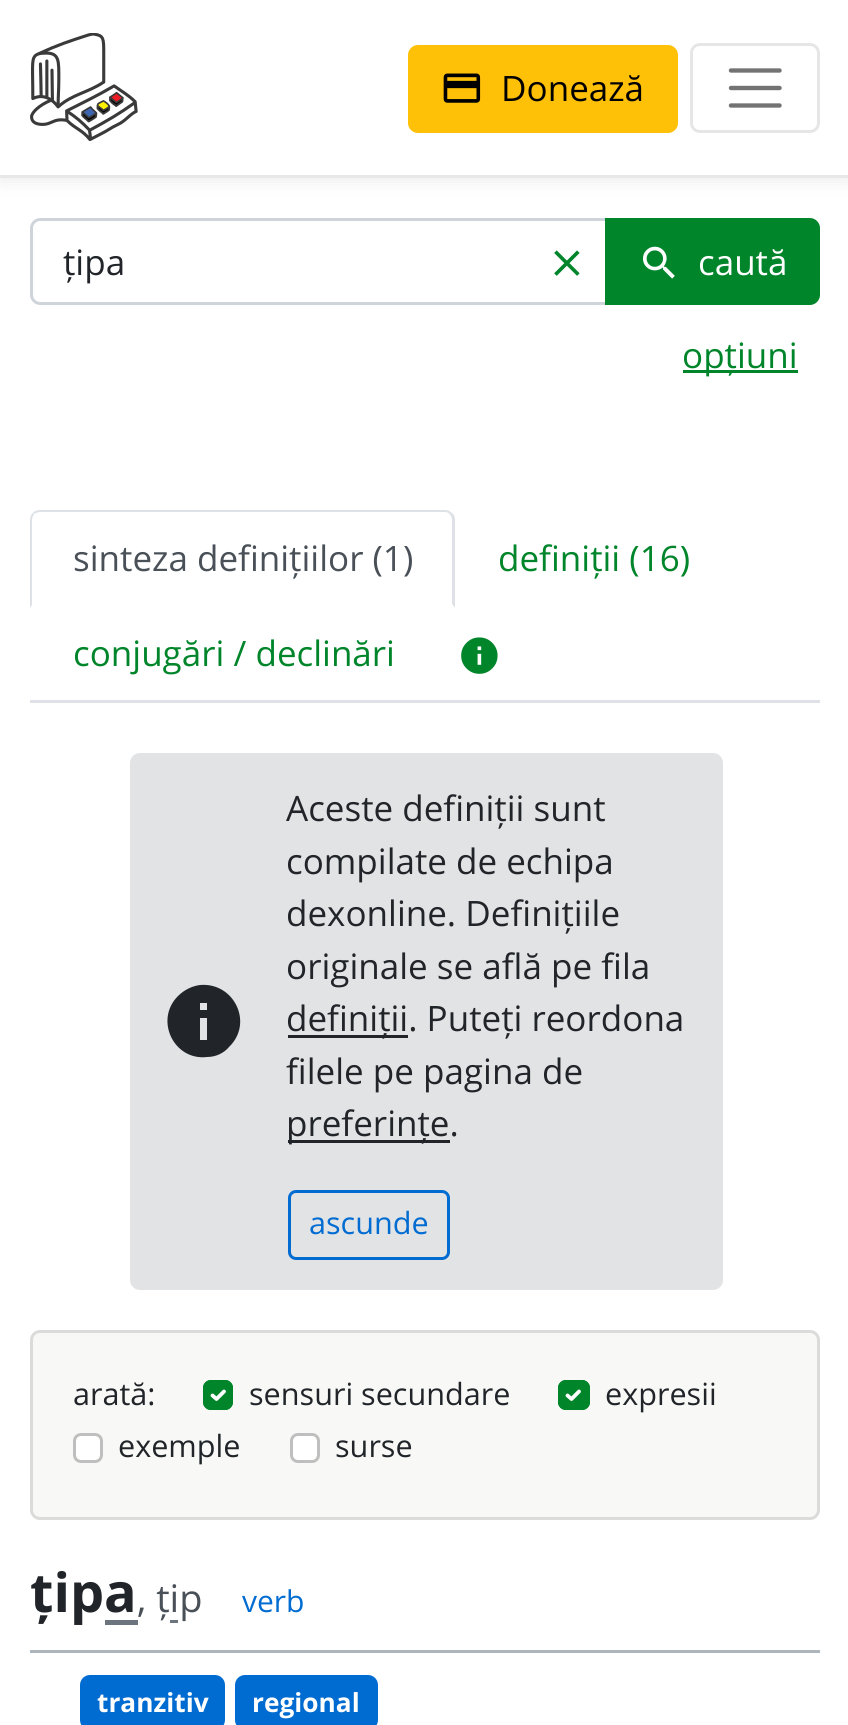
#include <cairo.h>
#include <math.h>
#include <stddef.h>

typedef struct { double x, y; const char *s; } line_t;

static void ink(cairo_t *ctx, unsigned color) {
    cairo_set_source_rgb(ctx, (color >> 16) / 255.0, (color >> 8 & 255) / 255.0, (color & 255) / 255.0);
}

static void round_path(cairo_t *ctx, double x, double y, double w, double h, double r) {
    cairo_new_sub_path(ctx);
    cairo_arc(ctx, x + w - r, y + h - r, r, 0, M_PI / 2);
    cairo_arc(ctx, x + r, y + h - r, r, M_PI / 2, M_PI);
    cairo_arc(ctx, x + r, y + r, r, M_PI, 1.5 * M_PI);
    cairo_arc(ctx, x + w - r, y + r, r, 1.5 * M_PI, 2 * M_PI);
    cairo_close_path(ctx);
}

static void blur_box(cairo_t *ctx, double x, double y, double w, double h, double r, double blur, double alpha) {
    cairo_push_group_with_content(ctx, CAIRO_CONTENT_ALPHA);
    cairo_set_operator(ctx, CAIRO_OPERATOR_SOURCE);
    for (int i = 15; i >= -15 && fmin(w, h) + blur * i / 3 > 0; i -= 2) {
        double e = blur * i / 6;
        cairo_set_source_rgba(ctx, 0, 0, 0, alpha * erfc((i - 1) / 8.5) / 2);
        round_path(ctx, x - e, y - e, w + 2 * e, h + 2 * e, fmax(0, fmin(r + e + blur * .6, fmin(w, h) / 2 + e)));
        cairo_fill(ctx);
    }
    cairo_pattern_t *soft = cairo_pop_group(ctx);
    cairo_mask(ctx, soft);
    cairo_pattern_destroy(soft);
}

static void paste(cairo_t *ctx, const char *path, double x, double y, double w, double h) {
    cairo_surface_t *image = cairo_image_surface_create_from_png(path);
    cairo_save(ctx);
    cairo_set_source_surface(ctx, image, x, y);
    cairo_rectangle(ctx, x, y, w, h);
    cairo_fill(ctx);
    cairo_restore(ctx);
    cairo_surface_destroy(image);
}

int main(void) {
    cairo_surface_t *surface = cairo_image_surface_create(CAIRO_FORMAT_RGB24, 848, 1725);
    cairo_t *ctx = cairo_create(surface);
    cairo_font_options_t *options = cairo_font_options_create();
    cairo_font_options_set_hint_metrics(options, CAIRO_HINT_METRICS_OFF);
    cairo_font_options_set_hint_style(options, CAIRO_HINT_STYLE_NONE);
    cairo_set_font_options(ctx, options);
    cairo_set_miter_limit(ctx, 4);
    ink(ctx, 0xFFFFFF);
    cairo_paint(ctx);
    ink(ctx, 0x000000);
    blur_box(ctx, 0, 0, 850, 178, 0, 10, 0.1);
    ink(ctx, 0xFFFFFF);
    cairo_rectangle(ctx, 0, 0, 848, 175);
    cairo_fill(ctx);
    ink(ctx, 0xE8E8E8);
    cairo_rectangle(ctx, 0, 175, 848, 3);
    cairo_fill(ctx);
    paste(ctx, "media/1.png", 30, 33, 108, 109);
    ink(ctx, 0xFFC107);
    round_path(ctx, 409.5, 46.5, 267, 85, 8.5);
    cairo_fill_preserve(ctx);
    cairo_set_line_width(ctx, 3);
    cairo_stroke(ctx);
    paste(ctx, "media/2.png", 443, 73, 38, 30);
    cairo_select_font_face(ctx, "Open Sans", CAIRO_FONT_SLANT_NORMAL, CAIRO_FONT_WEIGHT_NORMAL);
    cairo_set_font_size(ctx, 35);
    ink(ctx, 0x000000);
    cairo_move_to(ctx, 501, 101);
    cairo_show_text(ctx, "Donează");
    round_path(ctx, 691.5, 44.5, 127, 87, 8.5);
    ink(ctx, 0xE6E6E6);
    cairo_stroke(ctx);
    cairo_new_path(ctx);
    cairo_move_to(ctx, 731, 70.5);
    cairo_line_to(ctx, 779.5, 70.5);
    cairo_move_to(ctx, 731, 88);
    cairo_line_to(ctx, 779.5, 88);
    cairo_move_to(ctx, 731, 105.5);
    cairo_line_to(ctx, 779.5, 105.5);
    ink(ctx, 0x737373);
    cairo_set_line_width(ctx, 4.4);
    cairo_set_line_cap(ctx, CAIRO_LINE_CAP_ROUND);
    cairo_stroke(ctx);
    cairo_new_path(ctx);
    cairo_move_to(ctx, 40, 219.5);
    cairo_line_to(ctx, 611.5, 219.5);
    cairo_line_to(ctx, 611.5, 303.5);
    cairo_line_to(ctx, 40, 303.5);
    cairo_curve_to(ctx, 35.5, 303.5, 31.5, 299.5, 31.5, 295);
    cairo_line_to(ctx, 31.5, 228);
    cairo_curve_to(ctx, 31.5, 223.5, 35.5, 219.5, 40, 219.5);
    cairo_close_path(ctx);
    ink(ctx, 0xCED4DA);
    cairo_set_line_width(ctx, 3);
    cairo_set_line_cap(ctx, CAIRO_LINE_CAP_BUTT);
    cairo_stroke(ctx);
    ink(ctx, 0x212529);
    cairo_move_to(ctx, 63, 275);
    cairo_show_text(ctx, "țipa");
    paste(ctx, "media/3.png", 554, 250, 26, 26);
    ink(ctx, 0x00852A);
    cairo_new_path(ctx);
    cairo_move_to(ctx, 606.5, 219.5);
    cairo_line_to(ctx, 810, 219.5);
    cairo_curve_to(ctx, 814.5, 219.5, 818.5, 223.5, 818.5, 228);
    cairo_line_to(ctx, 818.5, 295);
    cairo_curve_to(ctx, 818.5, 299.5, 814.5, 303.5, 810, 303.5);
    cairo_line_to(ctx, 606.5, 303.5);
    cairo_close_path(ctx);
    cairo_fill_preserve(ctx);
    cairo_stroke(ctx);
    paste(ctx, "media/4.png", 643, 246, 32, 33);
    ink(ctx, 0xFFFFFF);
    cairo_move_to(ctx, 698, 275);
    cairo_show_text(ctx, "caută");
    ink(ctx, 0x00852A);
    cairo_rectangle(ctx, 683, 370, 115, 3);
    cairo_fill(ctx);
    cairo_move_to(ctx, 682, 368);
    cairo_show_text(ctx, "opțiuni");
    ink(ctx, 0xDEE2E6);
    cairo_rectangle(ctx, 30, 700, 790, 3);
    cairo_fill(ctx);
    cairo_new_path(ctx);
    cairo_move_to(ctx, 40, 510);
    cairo_curve_to(ctx, 37, 510, 34, 511, 33, 513);
    cairo_line_to(ctx, 34, 514);
    cairo_curve_to(ctx, 36, 513, 38, 512, 40, 512);
    cairo_line_to(ctx, 445, 512);
    cairo_curve_to(ctx, 447, 512, 449, 513, 450, 515);
    cairo_line_to(ctx, 452, 513);
    cairo_curve_to(ctx, 450, 511, 448, 510, 445, 510);
    cairo_close_path(ctx);
    cairo_fill(ctx);
    cairo_new_path(ctx);
    cairo_move_to(ctx, 455, 608);
    cairo_line_to(ctx, 455, 520);
    cairo_curve_to(ctx, 455, 517, 454, 514, 452, 513);
    cairo_line_to(ctx, 450, 515);
    cairo_curve_to(ctx, 451, 516, 452, 518, 452, 520);
    cairo_line_to(ctx, 452, 604);
    cairo_close_path(ctx);
    cairo_fill(ctx);
    ink(ctx, 0xFFFFFF);
    cairo_new_path(ctx);
    cairo_move_to(ctx, 455, 608);
    cairo_line_to(ctx, 30, 608);
    cairo_line_to(ctx, 32, 605);
    cairo_line_to(ctx, 452, 605);
    cairo_line_to(ctx, 452, 604);
    cairo_close_path(ctx);
    cairo_fill(ctx);
    ink(ctx, 0xDEE2E6);
    cairo_new_path(ctx);
    cairo_move_to(ctx, 30, 608);
    cairo_line_to(ctx, 32, 605);
    cairo_line_to(ctx, 32, 520);
    cairo_curve_to(ctx, 32, 518, 33, 516, 34, 514);
    cairo_line_to(ctx, 33, 513);
    cairo_curve_to(ctx, 31, 514, 30, 517, 30, 520);
    cairo_close_path(ctx);
    cairo_fill(ctx);
    ink(ctx, 0x495057);
    cairo_move_to(ctx, 73, 571);
    cairo_show_text(ctx, "sinteza definițiilor (1)");
    ink(ctx, 0x00852A);
    cairo_move_to(ctx, 498, 571);
    cairo_show_text(ctx, "definiții (16)");
    cairo_move_to(ctx, 73, 666);
    cairo_show_text(ctx, "conjugări / declinări");
    paste(ctx, "media/5.png", 461, 637, 37, 37);
    ink(ctx, 0xE2E3E5);
    round_path(ctx, 130, 753, 593, 537, 10);
    cairo_fill(ctx);
    ink(ctx, 0x212529);
    cairo_new_path(ctx);
    cairo_move_to(ctx, 207, 1010);
    cairo_line_to(ctx, 207, 1003);
    cairo_line_to(ctx, 200, 1003);
    cairo_line_to(ctx, 200, 1010);
    cairo_close_path(ctx);
    cairo_move_to(ctx, 207, 1040);
    cairo_line_to(ctx, 207, 1018);
    cairo_line_to(ctx, 200, 1018);
    cairo_line_to(ctx, 200, 1040);
    cairo_close_path(ctx);
    cairo_move_to(ctx, 178, 996);
    cairo_curve_to(ctx, 184, 990, 192, 986, 200, 985);
    cairo_curve_to(ctx, 234, 982, 254, 1023, 229, 1047);
    cairo_curve_to(ctx, 224, 1053, 216, 1057, 207, 1057);
    cairo_curve_to(ctx, 174, 1061, 154, 1020, 178, 996);
    cairo_close_path(ctx);
    cairo_fill(ctx);
    {
        static const line_t items[] = {
            {286, 821, "Aceste definiții sunt"},
            {286, 874, "compilate de echipa"},
            {286, 926, "dexonline. Definițiile"},
            {286, 979, "originale se află pe fila"},
        };
        for (size_t i = 0; i < sizeof items / sizeof *items; i++) {
            cairo_move_to(ctx, items[i].x, items[i].y);
            cairo_show_text(ctx, items[i].s);
        }
    }
    cairo_rectangle(ctx, 288, 1035, 120, 3);
    cairo_fill(ctx);
    cairo_move_to(ctx, 286, 1031);
    cairo_show_text(ctx, "definiții. Puteți reordona");
    cairo_move_to(ctx, 286, 1084);
    cairo_show_text(ctx, "filele pe pagina de");
    cairo_rectangle(ctx, 288, 1140, 162, 3);
    cairo_fill(ctx);
    cairo_move_to(ctx, 286, 1136);
    cairo_show_text(ctx, "preferințe.");
    round_path(ctx, 289.5, 1191.5, 159, 67, 6.5);
    ink(ctx, 0x006CD1);
    cairo_stroke(ctx);
    cairo_set_font_size(ctx, 30.6);
    cairo_move_to(ctx, 309, 1234);
    cairo_show_text(ctx, "ascunde");
    ink(ctx, 0xF8F9F6);
    round_path(ctx, 30, 1330, 790, 190, 10);
    cairo_fill(ctx);
    round_path(ctx, 31.5, 1331.5, 787, 187, 8.5);
    cairo_set_source_rgba(ctx, 0, 0, 0, 0.12);
    cairo_stroke(ctx);
    ink(ctx, 0x212529);
    cairo_move_to(ctx, 73, 1405);
    cairo_show_text(ctx, "arată:");
    ink(ctx, 0x00852A);
    round_path(ctx, 203, 1380, 30, 30, 8);
    cairo_fill(ctx);
    cairo_new_path(ctx);
    cairo_move_to(ctx, 212.5, 1395.5);
    cairo_line_to(ctx, 216.5, 1399);
    cairo_line_to(ctx, 224, 1391.5);
    ink(ctx, 0xFFFFFF);
    cairo_set_line_width(ctx, 3.8);
    cairo_set_line_cap(ctx, CAIRO_LINE_CAP_ROUND);
    cairo_set_line_join(ctx, CAIRO_LINE_JOIN_ROUND);
    cairo_stroke(ctx);
    round_path(ctx, 204.5, 1381.5, 27, 27, 6.5);
    ink(ctx, 0x00852A);
    cairo_set_line_width(ctx, 3);
    cairo_set_line_cap(ctx, CAIRO_LINE_CAP_BUTT);
    cairo_set_line_join(ctx, CAIRO_LINE_JOIN_MITER);
    cairo_stroke(ctx);
    ink(ctx, 0x212529);
    cairo_move_to(ctx, 249, 1405);
    cairo_show_text(ctx, "sensuri secundare");
    ink(ctx, 0x00852A);
    round_path(ctx, 558, 1380, 32, 30, 8);
    cairo_fill(ctx);
    cairo_new_path(ctx);
    cairo_move_to(ctx, 567.5, 1395.5);
    cairo_line_to(ctx, 571.5, 1399);
    cairo_line_to(ctx, 579, 1391.5);
    ink(ctx, 0xFFFFFF);
    cairo_set_line_width(ctx, 3.8);
    cairo_set_line_cap(ctx, CAIRO_LINE_CAP_ROUND);
    cairo_set_line_join(ctx, CAIRO_LINE_JOIN_ROUND);
    cairo_stroke(ctx);
    round_path(ctx, 559.5, 1381.5, 29, 27, 6.5);
    ink(ctx, 0x00852A);
    cairo_set_line_width(ctx, 3);
    cairo_set_line_cap(ctx, CAIRO_LINE_CAP_BUTT);
    cairo_set_line_join(ctx, CAIRO_LINE_JOIN_MITER);
    cairo_stroke(ctx);
    ink(ctx, 0x212529);
    cairo_move_to(ctx, 605, 1405);
    cairo_show_text(ctx, "expresii");
    ink(ctx, 0xFFFFFF);
    round_path(ctx, 73, 1433, 30, 30, 8);
    cairo_fill(ctx);
    round_path(ctx, 74.5, 1434.5, 27, 27, 6.5);
    cairo_set_source_rgba(ctx, 0, 0, 0, 0.25);
    cairo_stroke(ctx);
    ink(ctx, 0x212529);
    cairo_move_to(ctx, 118, 1457);
    cairo_show_text(ctx, "exemple");
    ink(ctx, 0xFFFFFF);
    round_path(ctx, 290, 1433, 30, 30, 8);
    cairo_fill(ctx);
    round_path(ctx, 291.5, 1434.5, 27, 27, 6.5);
    cairo_set_source_rgba(ctx, 0, 0, 0, 0.25);
    cairo_stroke(ctx);
    ink(ctx, 0x212529);
    cairo_move_to(ctx, 335, 1457);
    cairo_show_text(ctx, "surse");
    ink(ctx, 0xADB5BD);
    cairo_rectangle(ctx, 30, 1650, 790, 3);
    cairo_fill(ctx);
    cairo_select_font_face(ctx, "Open Sans", CAIRO_FONT_SLANT_NORMAL, CAIRO_FONT_WEIGHT_BOLD);
    cairo_set_font_size(ctx, 54);
    ink(ctx, 0x212529);
    cairo_move_to(ctx, 30, 1612);
    cairo_show_text(ctx, "țipa");
    ink(ctx, 0x6C757D);
    cairo_rectangle(ctx, 105, 1620, 33, 5);
    cairo_fill(ctx);
    cairo_select_font_face(ctx, "Open Sans", CAIRO_FONT_SLANT_NORMAL, CAIRO_FONT_WEIGHT_NORMAL);
    cairo_set_font_size(ctx, 38);
    ink(ctx, 0x495057);
    cairo_move_to(ctx, 137, 1612);
    cairo_show_text(ctx, ", țip");
    ink(ctx, 0x6C757D);
    cairo_rectangle(ctx, 170, 1620, 8, 3);
    cairo_fill(ctx);
    cairo_set_font_size(ctx, 30);
    ink(ctx, 0x006CD1);
    cairo_move_to(ctx, 242, 1612);
    cairo_show_text(ctx, "verb");
    round_path(ctx, 80, 1675, 145, 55, 10);
    cairo_fill(ctx);
    cairo_select_font_face(ctx, "Open Sans", CAIRO_FONT_SLANT_NORMAL, CAIRO_FONT_WEIGHT_BOLD);
    cairo_set_font_size(ctx, 26.25);
    ink(ctx, 0xFFFFFF);
    cairo_move_to(ctx, 97, 1712);
    cairo_show_text(ctx, "tranzitiv");
    ink(ctx, 0x006CD1);
    round_path(ctx, 235, 1675, 143, 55, 10);
    cairo_fill(ctx);
    ink(ctx, 0xFFFFFF);
    cairo_move_to(ctx, 252, 1712);
    cairo_show_text(ctx, "regional");
    cairo_surface_write_to_png(surface, "image.png");
    cairo_font_options_destroy(options);
    cairo_destroy(ctx);
    cairo_surface_destroy(surface);
    return 0;
}
